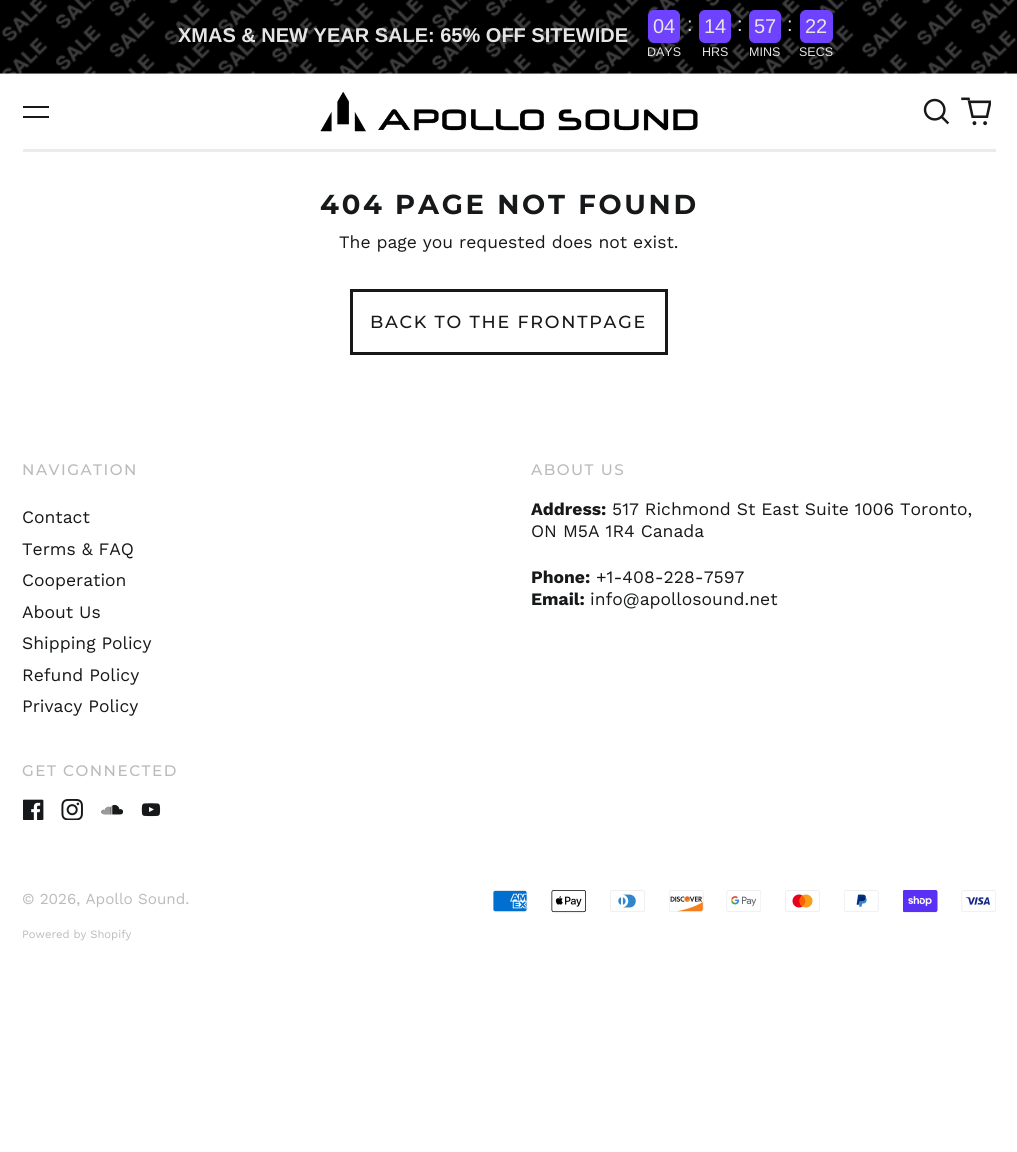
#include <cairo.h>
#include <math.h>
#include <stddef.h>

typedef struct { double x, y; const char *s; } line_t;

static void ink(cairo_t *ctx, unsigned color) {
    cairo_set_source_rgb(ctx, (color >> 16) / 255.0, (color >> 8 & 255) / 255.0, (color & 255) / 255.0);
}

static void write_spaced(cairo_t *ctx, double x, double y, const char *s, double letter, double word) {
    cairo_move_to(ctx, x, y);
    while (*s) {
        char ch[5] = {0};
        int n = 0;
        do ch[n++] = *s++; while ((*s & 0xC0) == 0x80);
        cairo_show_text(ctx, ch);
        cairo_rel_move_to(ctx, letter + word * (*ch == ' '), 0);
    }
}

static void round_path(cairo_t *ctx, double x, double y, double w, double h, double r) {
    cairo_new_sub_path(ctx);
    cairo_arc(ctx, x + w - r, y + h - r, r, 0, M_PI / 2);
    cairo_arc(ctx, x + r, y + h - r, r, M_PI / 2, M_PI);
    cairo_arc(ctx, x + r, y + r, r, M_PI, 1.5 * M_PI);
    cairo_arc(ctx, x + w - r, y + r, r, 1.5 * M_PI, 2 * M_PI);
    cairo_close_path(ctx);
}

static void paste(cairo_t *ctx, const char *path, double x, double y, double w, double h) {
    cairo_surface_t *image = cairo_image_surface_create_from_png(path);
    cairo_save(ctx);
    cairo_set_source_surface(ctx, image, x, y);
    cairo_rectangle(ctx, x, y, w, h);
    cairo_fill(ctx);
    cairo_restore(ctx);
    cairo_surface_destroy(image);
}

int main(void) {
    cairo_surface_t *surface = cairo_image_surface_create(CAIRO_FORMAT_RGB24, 1017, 1152);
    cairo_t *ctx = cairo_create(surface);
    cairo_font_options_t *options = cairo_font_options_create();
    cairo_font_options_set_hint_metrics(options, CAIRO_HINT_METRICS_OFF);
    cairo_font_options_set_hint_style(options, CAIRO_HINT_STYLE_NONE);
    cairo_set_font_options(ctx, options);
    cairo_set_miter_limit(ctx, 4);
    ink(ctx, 0xFFFFFF);
    cairo_paint(ctx);
    paste(ctx, "media/1.png", 0, 0, 1017, 74);
    cairo_select_font_face(ctx, "Liberation Sans", CAIRO_FONT_SLANT_NORMAL, CAIRO_FONT_WEIGHT_BOLD);
    cairo_set_font_size(ctx, 20);
    ink(ctx, 0xE5E5E5);
    cairo_move_to(ctx, 178, 42);
    cairo_show_text(ctx, "XMAS & NEW YEAR SALE: 65% OFF SITEWIDE");
    ink(ctx, 0x6E42FF);
    round_path(ctx, 648.5, 10.5, 31, 32, 5.5);
    cairo_fill_preserve(ctx);
    cairo_set_line_width(ctx, 1);
    cairo_stroke(ctx);
    cairo_select_font_face(ctx, "Liberation Sans", CAIRO_FONT_SLANT_NORMAL, CAIRO_FONT_WEIGHT_NORMAL);
    ink(ctx, 0xE5E5E5);
    cairo_move_to(ctx, 653, 33);
    cairo_show_text(ctx, "04");
    cairo_set_font_size(ctx, 12.5);
    cairo_move_to(ctx, 647, 56);
    cairo_show_text(ctx, "DAYS");
    cairo_set_font_size(ctx, 20);
    cairo_move_to(ctx, 687, 31);
    cairo_show_text(ctx, ":");
    ink(ctx, 0x6E42FF);
    round_path(ctx, 699.5, 10.5, 31, 32, 5.5);
    cairo_fill_preserve(ctx);
    cairo_stroke(ctx);
    ink(ctx, 0xE5E5E5);
    cairo_move_to(ctx, 704, 33);
    cairo_show_text(ctx, "14");
    cairo_set_font_size(ctx, 12.5);
    cairo_move_to(ctx, 702, 56);
    cairo_show_text(ctx, "HRS");
    cairo_set_font_size(ctx, 20);
    cairo_move_to(ctx, 737, 31);
    cairo_show_text(ctx, ":");
    ink(ctx, 0x6E42FF);
    round_path(ctx, 749.5, 10.5, 31, 32, 5.5);
    cairo_fill_preserve(ctx);
    cairo_stroke(ctx);
    ink(ctx, 0xE5E5E5);
    cairo_move_to(ctx, 754, 33);
    cairo_show_text(ctx, "57");
    cairo_set_font_size(ctx, 12.5);
    cairo_move_to(ctx, 749, 56);
    cairo_show_text(ctx, "MINS");
    cairo_set_font_size(ctx, 20);
    cairo_move_to(ctx, 787, 31);
    cairo_show_text(ctx, ":");
    ink(ctx, 0x6E42FF);
    round_path(ctx, 800.5, 10.5, 32, 32, 5.5);
    cairo_fill_preserve(ctx);
    cairo_stroke(ctx);
    ink(ctx, 0xE5E5E5);
    cairo_move_to(ctx, 805, 33);
    cairo_show_text(ctx, "22");
    cairo_set_font_size(ctx, 12.5);
    cairo_move_to(ctx, 799, 56);
    cairo_show_text(ctx, "SECS");
    ink(ctx, 0xEBEBEB);
    cairo_rectangle(ctx, 23, 149, 973, 3);
    cairo_fill(ctx);
    cairo_save(ctx);
    cairo_rectangle(ctx, 23, 99, 26, 26);
    cairo_clip(ctx);
    ink(ctx, 0x161819);
    cairo_set_fill_rule(ctx, CAIRO_FILL_RULE_EVEN_ODD);
    cairo_new_path(ctx);
    cairo_move_to(ctx, 49, 116);
    cairo_line_to(ctx, 49, 118);
    cairo_line_to(ctx, 22.5, 118);
    cairo_line_to(ctx, 22.5, 116);
    cairo_close_path(ctx);
    cairo_move_to(ctx, 49, 106);
    cairo_line_to(ctx, 49, 108);
    cairo_line_to(ctx, 22.5, 108);
    cairo_line_to(ctx, 22.5, 106);
    cairo_close_path(ctx);
    cairo_fill(ctx);
    cairo_restore(ctx);
    paste(ctx, "media/2.png", 320, 92, 378, 40);
    paste(ctx, "media/3.png", 923, 98, 27, 27);
    paste(ctx, "media/4.png", 961, 97, 30, 29);
    cairo_select_font_face(ctx, "Montserrat", CAIRO_FONT_SLANT_NORMAL, CAIRO_FONT_WEIGHT_BOLD);
    cairo_set_font_size(ctx, 27.4);
    ink(ctx, 0x161819);
    write_spaced(ctx, 320, 214, "404 PAGE NOT FOUND", 2.75, 0);
    cairo_select_font_face(ctx, "Work Sans", CAIRO_FONT_SLANT_NORMAL, CAIRO_FONT_WEIGHT_NORMAL);
    cairo_set_font_size(ctx, 17.5);
    cairo_move_to(ctx, 339, 248);
    cairo_show_text(ctx, "The page you requested does not exist.");
    cairo_rectangle(ctx, 351.5, 290.5, 315, 63);
    cairo_set_line_width(ctx, 3);
    cairo_stroke(ctx);
    cairo_select_font_face(ctx, "Montserrat Medium", CAIRO_FONT_SLANT_NORMAL, CAIRO_FONT_WEIGHT_NORMAL);
    write_spaced(ctx, 370, 328, "BACK TO THE FRONTPAGE", 1.75, 0);
    cairo_set_font_size(ctx, 15.25);
    ink(ctx, 0xBBBBBB);
    write_spaced(ctx, 22, 475, "NAVIGATION", 1.5, 0);
    cairo_select_font_face(ctx, "Work Sans", CAIRO_FONT_SLANT_NORMAL, CAIRO_FONT_WEIGHT_NORMAL);
    cairo_set_font_size(ctx, 17.5);
    ink(ctx, 0x161819);
    {
        static const line_t items[] = {
            {22, 523, "Contact"},
            {22, 555, "Terms & FAQ"},
            {22, 586, "Cooperation"},
            {22, 618, "About Us"},
            {22, 649, "Shipping Policy"},
            {22, 681, "Refund Policy"},
            {22, 712, "Privacy Policy"},
        };
        for (size_t i = 0; i < sizeof items / sizeof *items; i++) {
            cairo_move_to(ctx, items[i].x, items[i].y);
            cairo_show_text(ctx, items[i].s);
        }
    }
    cairo_select_font_face(ctx, "Montserrat Medium", CAIRO_FONT_SLANT_NORMAL, CAIRO_FONT_WEIGHT_NORMAL);
    cairo_set_font_size(ctx, 15.25);
    ink(ctx, 0xBBBBBB);
    write_spaced(ctx, 531, 475, "ABOUT US", 1.5, 0);
    cairo_select_font_face(ctx, "Work Sans", CAIRO_FONT_SLANT_NORMAL, CAIRO_FONT_WEIGHT_BOLD);
    cairo_set_font_size(ctx, 17.5);
    ink(ctx, 0x161819);
    cairo_move_to(ctx, 531, 515);
    cairo_show_text(ctx, "Address:");
    cairo_select_font_face(ctx, "Work Sans", CAIRO_FONT_SLANT_NORMAL, CAIRO_FONT_WEIGHT_NORMAL);
    cairo_move_to(ctx, 612, 515);
    cairo_show_text(ctx, "517 Richmond St East Suite 1006 Toronto,");
    cairo_move_to(ctx, 531, 537);
    cairo_show_text(ctx, "ON M5A 1R4 Canada");
    cairo_select_font_face(ctx, "Work Sans", CAIRO_FONT_SLANT_NORMAL, CAIRO_FONT_WEIGHT_BOLD);
    cairo_move_to(ctx, 531, 583);
    cairo_show_text(ctx, "Phone:");
    cairo_select_font_face(ctx, "Work Sans", CAIRO_FONT_SLANT_NORMAL, CAIRO_FONT_WEIGHT_NORMAL);
    cairo_move_to(ctx, 596, 583);
    cairo_show_text(ctx, "+1-408-228-7597");
    cairo_select_font_face(ctx, "Work Sans", CAIRO_FONT_SLANT_NORMAL, CAIRO_FONT_WEIGHT_BOLD);
    cairo_move_to(ctx, 531, 605);
    cairo_show_text(ctx, "Email:");
    cairo_select_font_face(ctx, "Work Sans", CAIRO_FONT_SLANT_NORMAL, CAIRO_FONT_WEIGHT_NORMAL);
    cairo_move_to(ctx, 590, 605);
    cairo_show_text(ctx, "info@apollosound.net");
    cairo_select_font_face(ctx, "Montserrat Medium", CAIRO_FONT_SLANT_NORMAL, CAIRO_FONT_WEIGHT_NORMAL);
    cairo_set_font_size(ctx, 15.25);
    ink(ctx, 0xBBBBBB);
    write_spaced(ctx, 22, 776, "GET CONNECTED", 1.5, 0);
    paste(ctx, "media/5.png", 23, 799, 21, 21);
    paste(ctx, "media/6.png", 61, 799, 22, 21);
    paste(ctx, "media/7.png", 101, 804, 22, 11);
    paste(ctx, "media/8.png", 141, 803, 20, 14);
    cairo_select_font_face(ctx, "Work Sans", CAIRO_FONT_SLANT_NORMAL, CAIRO_FONT_WEIGHT_NORMAL);
    cairo_move_to(ctx, 22, 904);
    cairo_show_text(ctx, "© 2026, Apollo Sound.");
    cairo_set_font_size(ctx, 11.25);
    cairo_move_to(ctx, 22, 938);
    cairo_show_text(ctx, "Powered by Shopify");
    paste(ctx, "media/9.png", 493, 890, 35, 22);
    paste(ctx, "media/10.png", 551, 890, 35, 23);
    paste(ctx, "media/11.png", 610, 890, 35, 22);
    paste(ctx, "media/12.png", 669, 890, 35, 22);
    paste(ctx, "media/13.png", 726, 890, 35, 22);
    paste(ctx, "media/14.png", 785, 890, 35, 22);
    paste(ctx, "media/15.png", 844, 890, 35, 22);
    paste(ctx, "media/16.png", 903, 890, 35, 23);
    paste(ctx, "media/17.png", 961, 890, 35, 22);
    cairo_surface_write_to_png(surface, "image.png");
    cairo_font_options_destroy(options);
    cairo_destroy(ctx);
    cairo_surface_destroy(surface);
    return 0;
}
